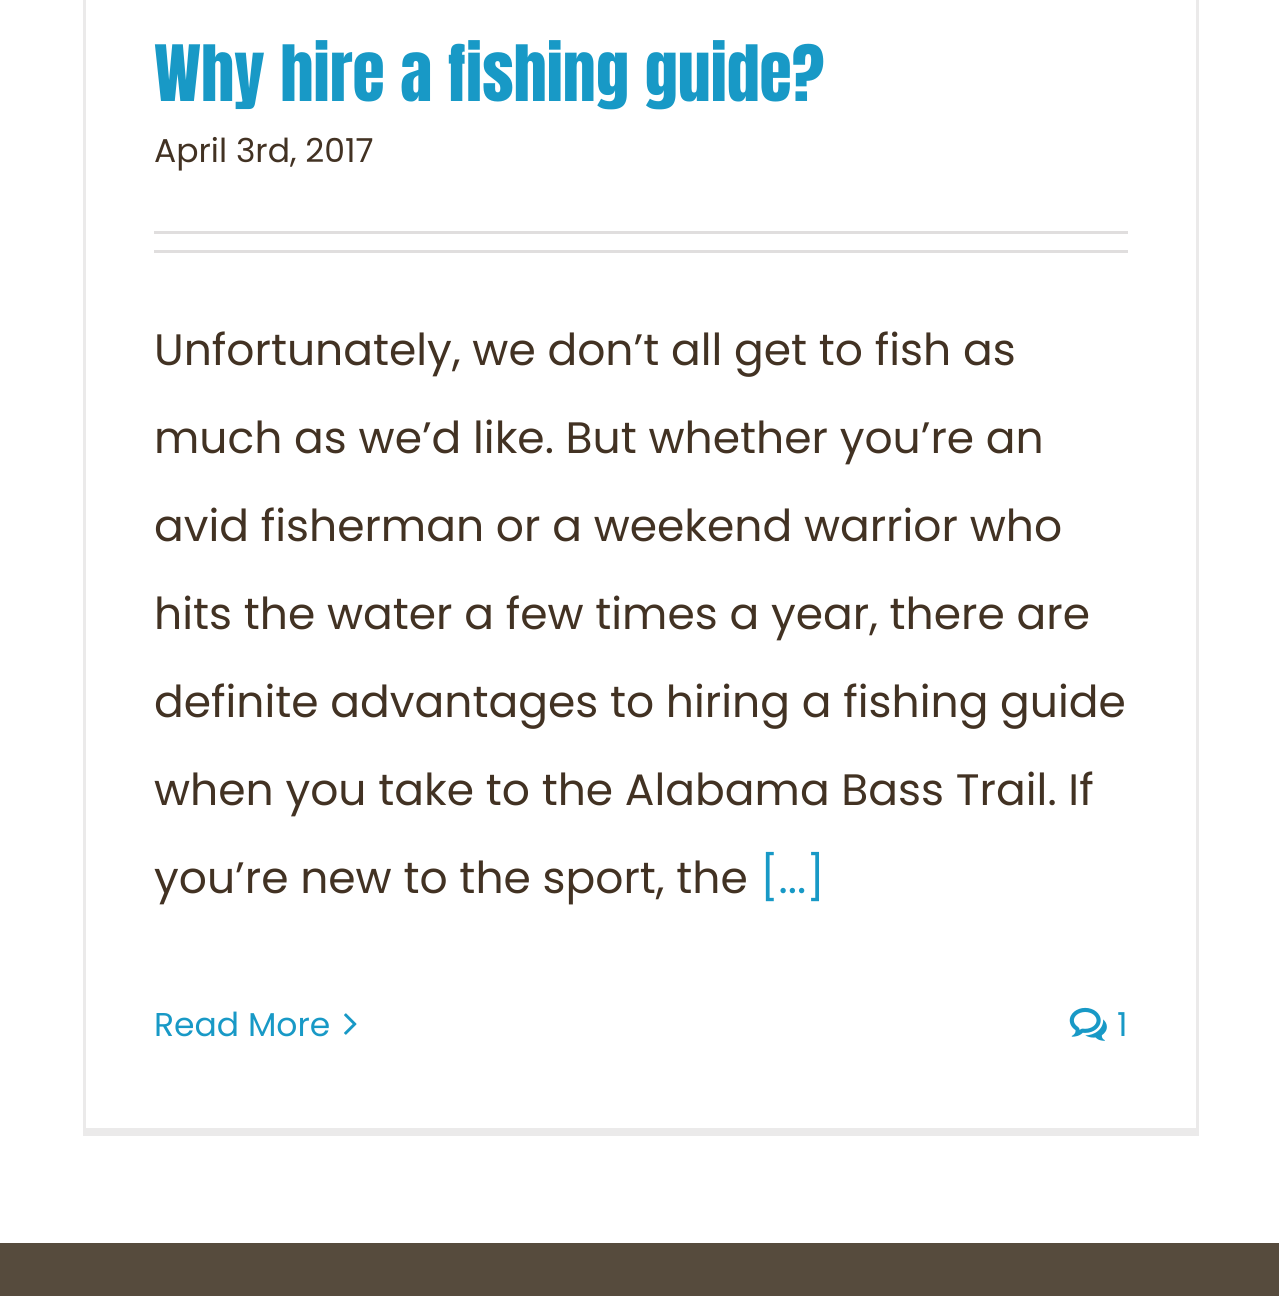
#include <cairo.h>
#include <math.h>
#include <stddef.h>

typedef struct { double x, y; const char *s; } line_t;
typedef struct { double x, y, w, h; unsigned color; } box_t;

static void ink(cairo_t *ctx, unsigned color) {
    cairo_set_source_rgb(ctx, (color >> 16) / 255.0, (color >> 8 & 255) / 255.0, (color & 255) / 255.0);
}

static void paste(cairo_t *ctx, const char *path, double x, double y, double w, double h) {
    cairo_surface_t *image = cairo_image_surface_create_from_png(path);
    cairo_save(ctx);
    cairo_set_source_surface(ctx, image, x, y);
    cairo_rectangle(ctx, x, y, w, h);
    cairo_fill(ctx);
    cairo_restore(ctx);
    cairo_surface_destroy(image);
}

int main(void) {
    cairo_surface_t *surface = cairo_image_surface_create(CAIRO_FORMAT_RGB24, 1279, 1296);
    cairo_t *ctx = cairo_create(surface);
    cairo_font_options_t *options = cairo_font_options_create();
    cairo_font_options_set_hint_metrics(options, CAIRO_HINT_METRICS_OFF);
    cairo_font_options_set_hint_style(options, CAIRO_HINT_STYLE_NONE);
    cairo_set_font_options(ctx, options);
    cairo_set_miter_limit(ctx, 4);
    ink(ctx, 0xFFFFFF);
    cairo_paint(ctx);
    {
        static const box_t items[] = {
            {1196, 0, 3, 1136, 0xEBEAEA},
            {83, 1128, 1116, 8, 0xEBEAEA},
            {83, 0, 3, 1136, 0xEBEAEA},
        };
        for (size_t i = 0; i < sizeof items / sizeof *items; i++) {
            ink(ctx, items[i].color);
            cairo_rectangle(ctx, items[i].x, items[i].y, items[i].w, items[i].h);
            cairo_fill(ctx);
        }
    }
    cairo_select_font_face(ctx, "Anton", CAIRO_FONT_SLANT_NORMAL, CAIRO_FONT_WEIGHT_NORMAL);
    cairo_set_font_size(ctx, 66);
    ink(ctx, 0x1899C6);
    cairo_move_to(ctx, 154, 101);
    cairo_show_text(ctx, "Why hire a fishing guide?");
    cairo_select_font_face(ctx, "Poppins", CAIRO_FONT_SLANT_NORMAL, CAIRO_FONT_WEIGHT_NORMAL);
    cairo_set_font_size(ctx, 33);
    ink(ctx, 0x423223);
    cairo_move_to(ctx, 154, 162);
    cairo_show_text(ctx, "April 3rd, 2017");
    ink(ctx, 0xE0DEDE);
    cairo_rectangle(ctx, 154, 231, 974, 3);
    cairo_fill(ctx);
    cairo_rectangle(ctx, 154, 250, 974, 3);
    cairo_fill(ctx);
    cairo_set_font_size(ctx, 44);
    ink(ctx, 0x423223);
    {
        static const line_t items[] = {
            {154, 365, "Unfortunately, we don’t all get to fish as"},
            {154, 453, "much as we’d like. But whether you’re an"},
            {154, 541, "avid fisherman or a weekend warrior who"},
            {154, 629, "hits the water a few times a year, there are"},
            {154, 717, "definite advantages to hiring a fishing guide"},
            {154, 805, "when you take to the Alabama Bass Trail. If"},
            {154, 893, "you’re new to the sport, the"},
        };
        for (size_t i = 0; i < sizeof items / sizeof *items; i++) {
            cairo_move_to(ctx, items[i].x, items[i].y);
            cairo_show_text(ctx, items[i].s);
        }
    }
    ink(ctx, 0x1899C6);
    cairo_move_to(ctx, 760, 893);
    cairo_show_text(ctx, "[...]");
    cairo_set_font_size(ctx, 33);
    cairo_move_to(ctx, 154, 1036);
    cairo_show_text(ctx, "Read More");
    paste(ctx, "media/1.png", 344, 1013, 13, 22);
    paste(ctx, "media/2.png", 1069, 1007, 38, 34);
    cairo_move_to(ctx, 1117, 1036);
    cairo_show_text(ctx, "1");
    ink(ctx, 0x564B3D);
    cairo_rectangle(ctx, 0, 1243, 1279, 53);
    cairo_fill(ctx);
    cairo_surface_write_to_png(surface, "image.png");
    cairo_font_options_destroy(options);
    cairo_destroy(ctx);
    cairo_surface_destroy(surface);
    return 0;
}
